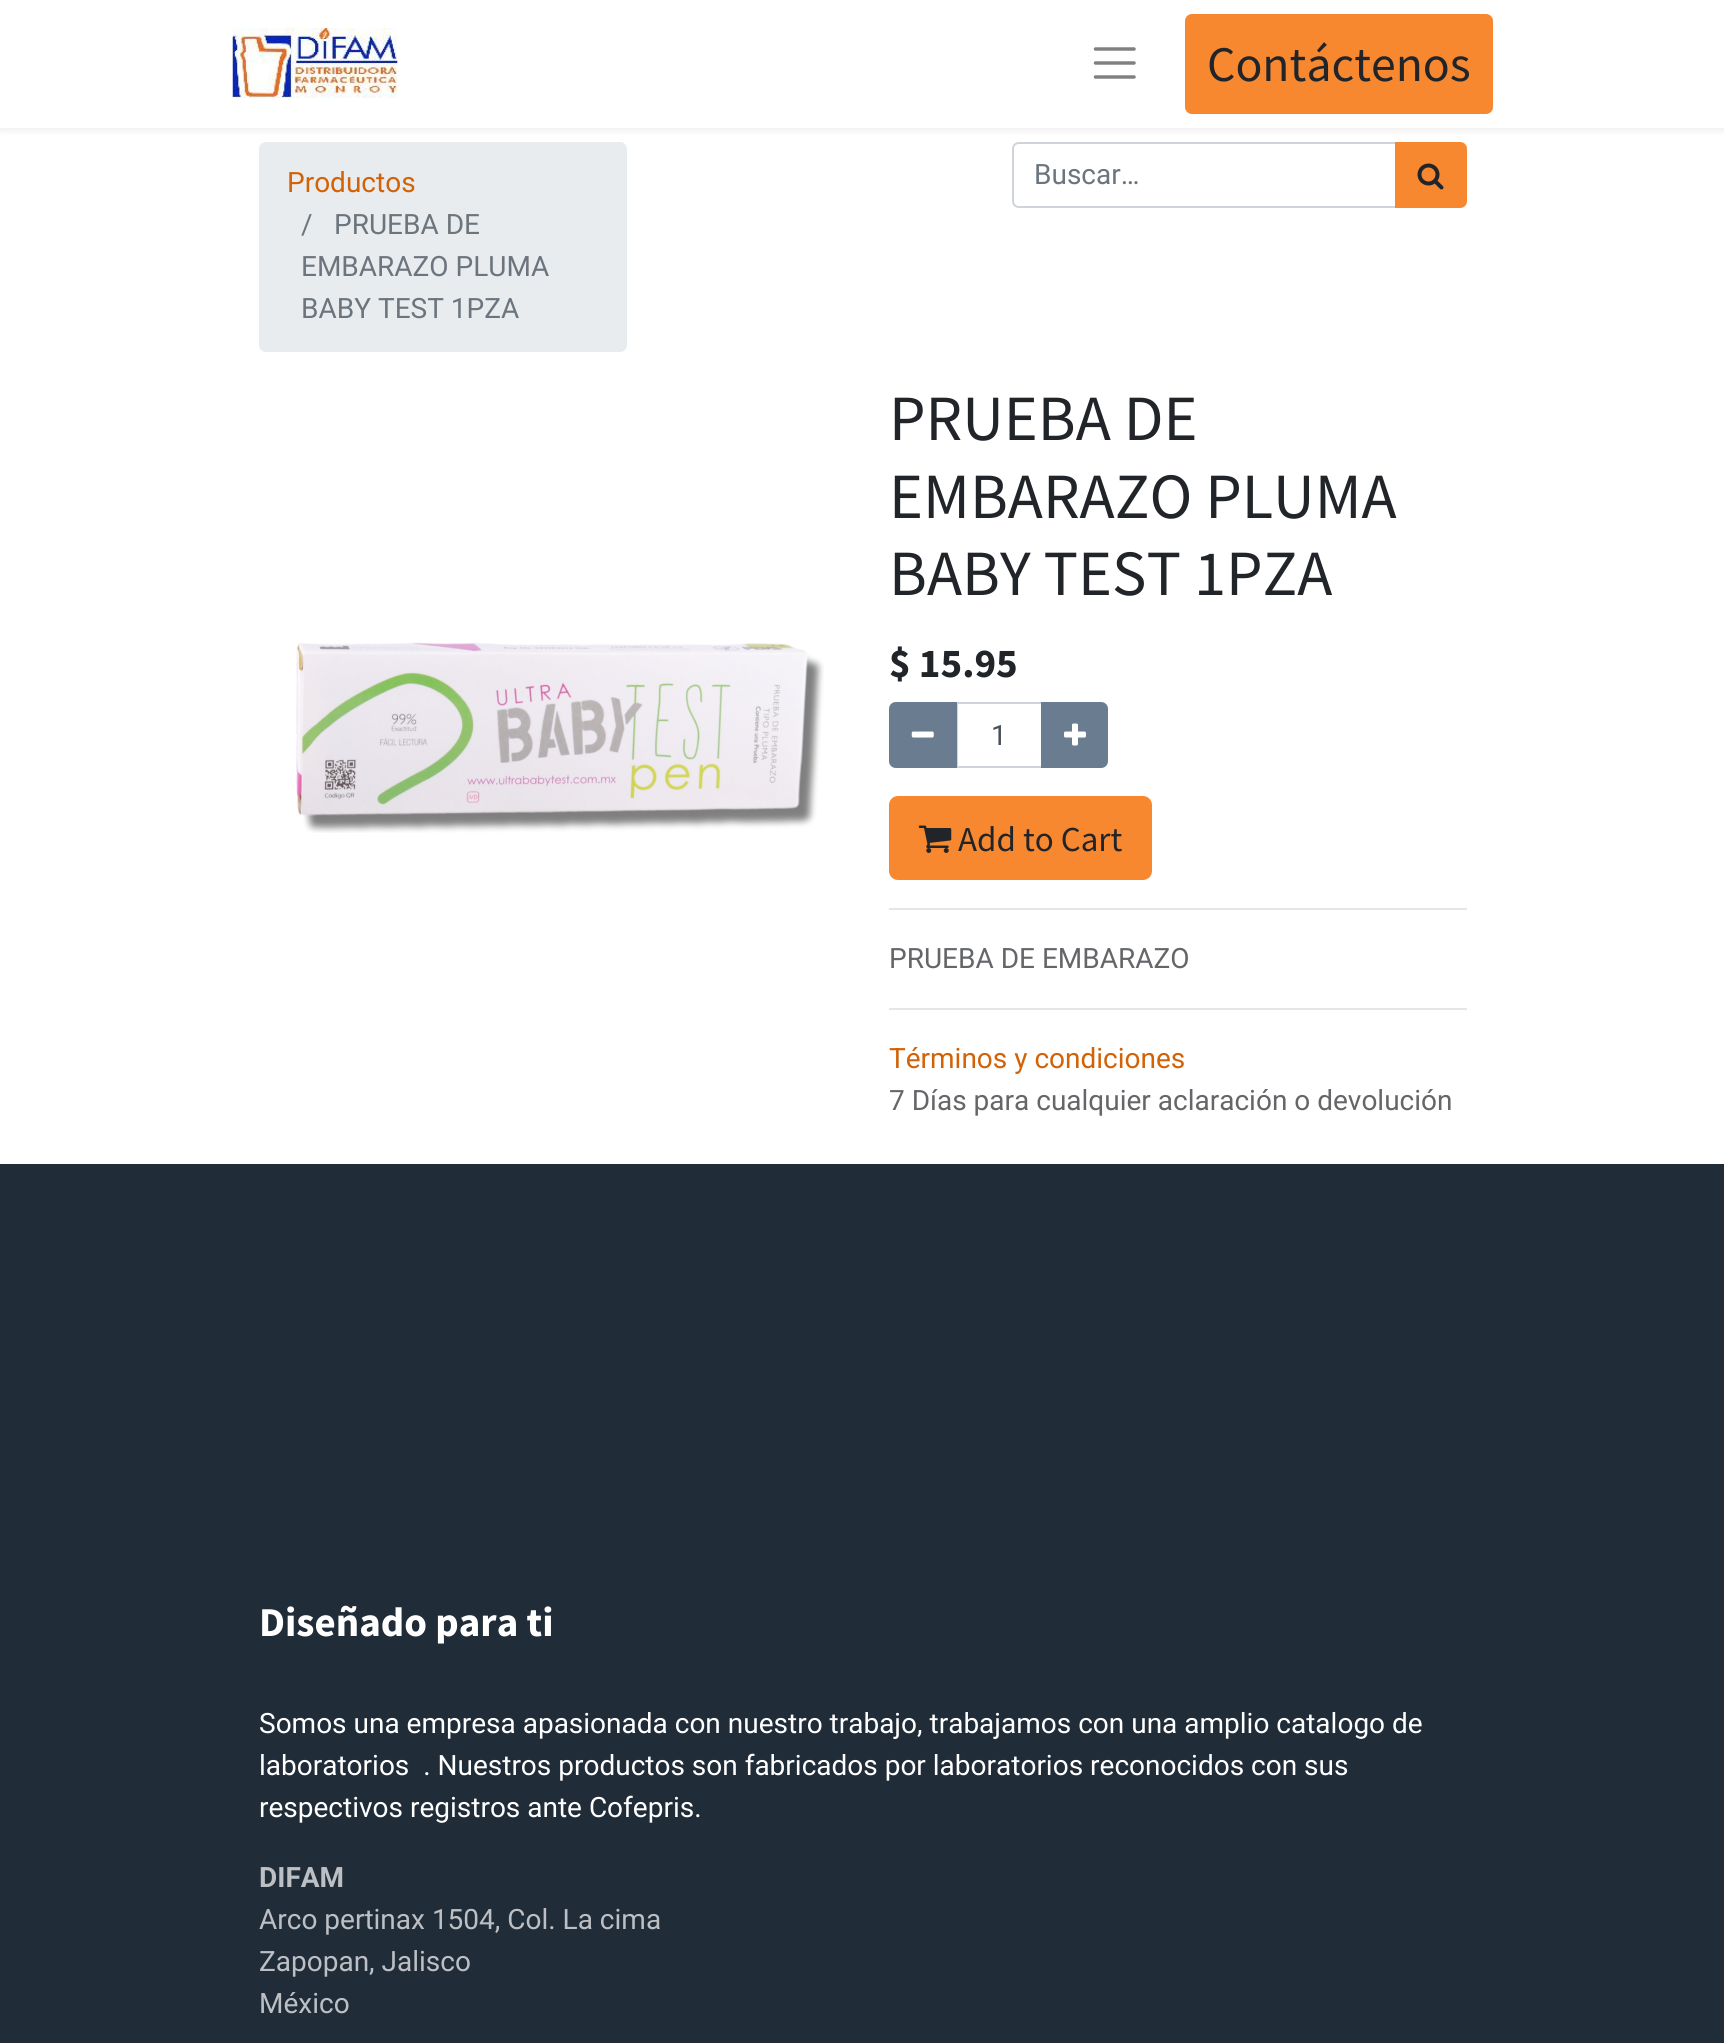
#include <cairo.h>
#include <math.h>
#include <stddef.h>

typedef struct { double x, y; const char *s; } line_t;

static void ink(cairo_t *ctx, unsigned color) {
    cairo_set_source_rgb(ctx, (color >> 16) / 255.0, (color >> 8 & 255) / 255.0, (color & 255) / 255.0);
}

static void round_path(cairo_t *ctx, double x, double y, double w, double h, double r) {
    cairo_new_sub_path(ctx);
    cairo_arc(ctx, x + w - r, y + h - r, r, 0, M_PI / 2);
    cairo_arc(ctx, x + r, y + h - r, r, M_PI / 2, M_PI);
    cairo_arc(ctx, x + r, y + r, r, M_PI, 1.5 * M_PI);
    cairo_arc(ctx, x + w - r, y + r, r, 1.5 * M_PI, 2 * M_PI);
    cairo_close_path(ctx);
}

static void blur_box(cairo_t *ctx, double x, double y, double w, double h, double r, double blur, double alpha) {
    cairo_push_group_with_content(ctx, CAIRO_CONTENT_ALPHA);
    cairo_set_operator(ctx, CAIRO_OPERATOR_SOURCE);
    for (int i = 15; i >= -15 && fmin(w, h) + blur * i / 3 > 0; i -= 2) {
        double e = blur * i / 6;
        cairo_set_source_rgba(ctx, 0, 0, 0, alpha * erfc((i - 1) / 8.5) / 2);
        round_path(ctx, x - e, y - e, w + 2 * e, h + 2 * e, fmax(0, fmin(r + e + blur * .6, fmin(w, h) / 2 + e)));
        cairo_fill(ctx);
    }
    cairo_pattern_t *soft = cairo_pop_group(ctx);
    cairo_mask(ctx, soft);
    cairo_pattern_destroy(soft);
}

static void paste(cairo_t *ctx, const char *path, double x, double y, double w, double h) {
    cairo_surface_t *image = cairo_image_surface_create_from_png(path);
    cairo_save(ctx);
    cairo_set_source_surface(ctx, image, x, y);
    cairo_rectangle(ctx, x, y, w, h);
    cairo_fill(ctx);
    cairo_restore(ctx);
    cairo_surface_destroy(image);
}

int main(void) {
    cairo_surface_t *surface = cairo_image_surface_create(CAIRO_FORMAT_RGB24, 1724, 2043);
    cairo_t *ctx = cairo_create(surface);
    cairo_font_options_t *options = cairo_font_options_create();
    cairo_font_options_set_hint_metrics(options, CAIRO_HINT_METRICS_OFF);
    cairo_font_options_set_hint_style(options, CAIRO_HINT_STYLE_NONE);
    cairo_set_font_options(ctx, options);
    cairo_set_miter_limit(ctx, 4);
    ink(ctx, 0xFFFFFF);
    cairo_paint(ctx);
    ink(ctx, 0xE9ECEF);
    round_path(ctx, 259, 142, 368, 210, 7);
    cairo_fill(ctx);
    cairo_new_path(ctx);
    cairo_move_to(ctx, 1019, 143);
    cairo_line_to(ctx, 1396, 143);
    cairo_line_to(ctx, 1396, 207);
    cairo_line_to(ctx, 1019, 207);
    cairo_curve_to(ctx, 1015.5, 207, 1013, 204.5, 1013, 201);
    cairo_line_to(ctx, 1013, 149);
    cairo_curve_to(ctx, 1013, 145.5, 1015.5, 143, 1019, 143);
    cairo_close_path(ctx);
    ink(ctx, 0xCED4DA);
    cairo_stroke(ctx);
    ink(ctx, 0xF8882F);
    cairo_new_path(ctx);
    cairo_move_to(ctx, 1396, 143);
    cairo_line_to(ctx, 1460, 143);
    cairo_curve_to(ctx, 1463.5, 143, 1466, 145.5, 1466, 149);
    cairo_line_to(ctx, 1466, 201);
    cairo_curve_to(ctx, 1466, 204.5, 1463.5, 207, 1460, 207);
    cairo_line_to(ctx, 1396, 207);
    cairo_close_path(ctx);
    cairo_fill_preserve(ctx);
    cairo_stroke(ctx);
    ink(ctx, 0x000000);
    blur_box(ctx, 0, 4, 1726, 127, 0, 3.5, 0.07);
    ink(ctx, 0xFFFFFF);
    cairo_rectangle(ctx, 0, 0, 1724, 128);
    cairo_fill(ctx);
    paste(ctx, "media/1.png", 232, 28, 166, 70);
    cairo_new_path(ctx);
    cairo_move_to(ctx, 1095.5, 49);
    cairo_line_to(ctx, 1134, 49);
    cairo_move_to(ctx, 1095.5, 63);
    cairo_line_to(ctx, 1134, 63);
    cairo_move_to(ctx, 1095.5, 77);
    cairo_line_to(ctx, 1134, 77);
    ink(ctx, 0x808080);
    cairo_set_line_width(ctx, 3.5);
    cairo_set_line_cap(ctx, CAIRO_LINE_CAP_ROUND);
    cairo_stroke(ctx);
    ink(ctx, 0xF8882F);
    round_path(ctx, 1186, 15, 306, 98, 6);
    cairo_fill_preserve(ctx);
    cairo_set_line_width(ctx, 2);
    cairo_set_line_cap(ctx, CAIRO_LINE_CAP_BUTT);
    cairo_stroke(ctx);
    cairo_select_font_face(ctx, "Source Sans Pro", CAIRO_FONT_SLANT_NORMAL, CAIRO_FONT_WEIGHT_NORMAL);
    cairo_set_font_size(ctx, 49.75);
    ink(ctx, 0x212529);
    cairo_move_to(ctx, 1207, 81);
    cairo_show_text(ctx, "Contáctenos");
    cairo_select_font_face(ctx, "Roboto", CAIRO_FONT_SLANT_NORMAL, CAIRO_FONT_WEIGHT_NORMAL);
    cairo_set_font_size(ctx, 28);
    ink(ctx, 0xD36207);
    cairo_move_to(ctx, 287, 192);
    cairo_show_text(ctx, "Productos");
    ink(ctx, 0x6C757D);
    {
        static const line_t items[] = {
            {301, 234, "/"},
            {334, 234, "PRUEBA DE"},
            {301, 276, "EMBARAZO PLUMA"},
            {301, 318, "BABY TEST 1PZA"},
            {1034, 184, "Buscar…"},
        };
        for (size_t i = 0; i < sizeof items / sizeof *items; i++) {
            cairo_move_to(ctx, items[i].x, items[i].y);
            cairo_show_text(ctx, items[i].s);
        }
    }
    paste(ctx, "media/2.png", 1417, 163, 27, 27);
    paste(ctx, "media/3.png", 296, 642, 528, 191);
    cairo_select_font_face(ctx, "Source Sans Pro", CAIRO_FONT_SLANT_NORMAL, CAIRO_FONT_WEIGHT_NORMAL);
    cairo_set_font_size(ctx, 64.5);
    ink(ctx, 0x212529);
    {
        static const line_t items[] = {
            {889, 440, "PRUEBA DE"},
            {889, 518, "EMBARAZO PLUMA"},
            {889, 595, "BABY TEST 1PZA"},
        };
        for (size_t i = 0; i < sizeof items / sizeof *items; i++) {
            cairo_move_to(ctx, items[i].x, items[i].y);
            cairo_show_text(ctx, items[i].s);
        }
    }
    cairo_select_font_face(ctx, "Source Sans Pro", CAIRO_FONT_SLANT_NORMAL, CAIRO_FONT_WEIGHT_BOLD);
    cairo_set_font_size(ctx, 41);
    cairo_move_to(ctx, 889, 677);
    cairo_show_text(ctx, "$ 15.95");
    cairo_rectangle(ctx, 957, 703, 85, 64);
    ink(ctx, 0xCED4DA);
    cairo_stroke(ctx);
    ink(ctx, 0x6A7C8F);
    cairo_new_path(ctx);
    cairo_move_to(ctx, 896, 703);
    cairo_line_to(ctx, 956, 703);
    cairo_line_to(ctx, 956, 767);
    cairo_line_to(ctx, 896, 767);
    cairo_curve_to(ctx, 892.5, 767, 890, 764.5, 890, 761);
    cairo_line_to(ctx, 890, 709);
    cairo_curve_to(ctx, 890, 705.5, 892.5, 703, 896, 703);
    cairo_close_path(ctx);
    cairo_fill_preserve(ctx);
    cairo_stroke(ctx);
    paste(ctx, "media/4.png", 911, 731, 23, 7);
    cairo_select_font_face(ctx, "Roboto", CAIRO_FONT_SLANT_NORMAL, CAIRO_FONT_WEIGHT_NORMAL);
    cairo_set_font_size(ctx, 28);
    ink(ctx, 0x495057);
    cairo_move_to(ctx, 991, 745);
    cairo_show_text(ctx, "1");
    ink(ctx, 0x6A7C8F);
    cairo_new_path(ctx);
    cairo_move_to(ctx, 1042, 703);
    cairo_line_to(ctx, 1101, 703);
    cairo_curve_to(ctx, 1104.5, 703, 1107, 705.5, 1107, 709);
    cairo_line_to(ctx, 1107, 761);
    cairo_curve_to(ctx, 1107, 764.5, 1104.5, 767, 1101, 767);
    cairo_line_to(ctx, 1042, 767);
    cairo_close_path(ctx);
    cairo_fill_preserve(ctx);
    cairo_stroke(ctx);
    paste(ctx, "media/5.png", 1064, 723, 22, 23);
    ink(ctx, 0xF8882F);
    round_path(ctx, 890, 797, 261, 82, 8);
    cairo_fill_preserve(ctx);
    cairo_stroke(ctx);
    paste(ctx, "media/6.png", 918, 825, 34, 28);
    cairo_select_font_face(ctx, "Source Sans Pro", CAIRO_FONT_SLANT_NORMAL, CAIRO_FONT_WEIGHT_NORMAL);
    cairo_set_font_size(ctx, 35);
    ink(ctx, 0x212529);
    cairo_move_to(ctx, 958, 851);
    cairo_show_text(ctx, "Add to Cart");
    ink(ctx, 0xE6E6E6);
    cairo_rectangle(ctx, 889, 908, 578, 2);
    cairo_fill(ctx);
    cairo_select_font_face(ctx, "Roboto", CAIRO_FONT_SLANT_NORMAL, CAIRO_FONT_WEIGHT_NORMAL);
    cairo_set_font_size(ctx, 28);
    ink(ctx, 0x646669);
    cairo_move_to(ctx, 889, 968);
    cairo_show_text(ctx, "PRUEBA DE EMBARAZO");
    ink(ctx, 0xE6E6E6);
    cairo_rectangle(ctx, 889, 1008, 578, 2);
    cairo_fill(ctx);
    ink(ctx, 0xD36207);
    cairo_move_to(ctx, 889, 1068);
    cairo_show_text(ctx, "Términos y condiciones");
    ink(ctx, 0x646669);
    cairo_move_to(ctx, 889, 1110);
    cairo_show_text(ctx, "7 Días para cualquier aclaración o devolución");
    ink(ctx, 0x212C39);
    cairo_rectangle(ctx, 0, 1164, 1724, 879);
    cairo_fill(ctx);
    cairo_select_font_face(ctx, "Source Sans Pro", CAIRO_FONT_SLANT_NORMAL, CAIRO_FONT_WEIGHT_BOLD);
    cairo_set_font_size(ctx, 41);
    ink(ctx, 0xFFFFFF);
    cairo_move_to(ctx, 259, 1636);
    cairo_show_text(ctx, "Diseñado para ti");
    cairo_select_font_face(ctx, "Roboto", CAIRO_FONT_SLANT_NORMAL, CAIRO_FONT_WEIGHT_NORMAL);
    cairo_set_font_size(ctx, 28);
    {
        static const line_t items[] = {
            {259, 1733, "Somos una empresa apasionada con nuestro trabajo, trabajamos con una amplio catalogo de"},
            {259, 1775, "laboratorios  . Nuestros productos son fabricados por laboratorios reconocidos con sus"},
            {259, 1817, "respectivos registros ante Cofepris."},
        };
        for (size_t i = 0; i < sizeof items / sizeof *items; i++) {
            cairo_move_to(ctx, items[i].x, items[i].y);
            cairo_show_text(ctx, items[i].s);
        }
    }
    cairo_select_font_face(ctx, "Roboto", CAIRO_FONT_SLANT_NORMAL, CAIRO_FONT_WEIGHT_BOLD);
    ink(ctx, 0xBCC0C4);
    cairo_move_to(ctx, 259, 1887);
    cairo_show_text(ctx, "DIFAM");
    cairo_select_font_face(ctx, "Roboto", CAIRO_FONT_SLANT_NORMAL, CAIRO_FONT_WEIGHT_NORMAL);
    {
        static const line_t items[] = {
            {259, 1929, "Arco pertinax 1504, Col. La cima"},
            {259, 1971, "Zapopan, Jalisco"},
            {259, 2013, "México"},
        };
        for (size_t i = 0; i < sizeof items / sizeof *items; i++) {
            cairo_move_to(ctx, items[i].x, items[i].y);
            cairo_show_text(ctx, items[i].s);
        }
    }
    cairo_surface_write_to_png(surface, "image.png");
    cairo_font_options_destroy(options);
    cairo_destroy(ctx);
    cairo_surface_destroy(surface);
    return 0;
}
